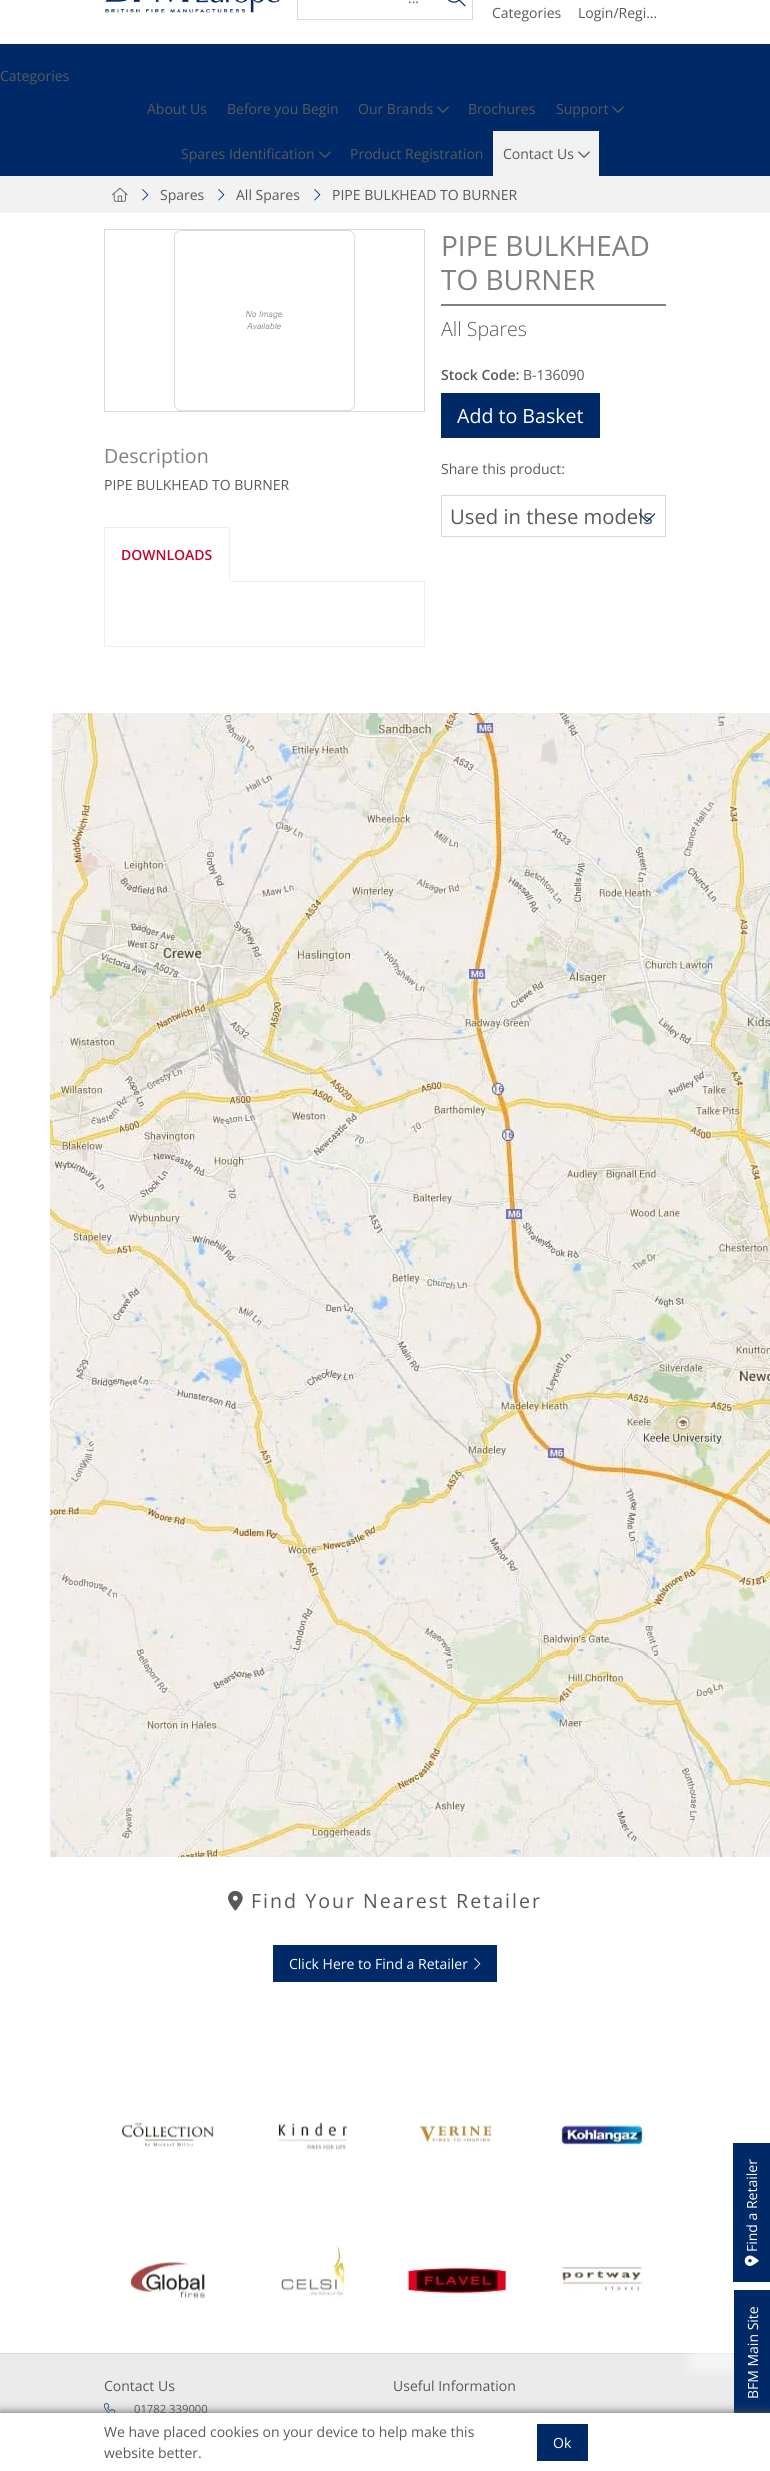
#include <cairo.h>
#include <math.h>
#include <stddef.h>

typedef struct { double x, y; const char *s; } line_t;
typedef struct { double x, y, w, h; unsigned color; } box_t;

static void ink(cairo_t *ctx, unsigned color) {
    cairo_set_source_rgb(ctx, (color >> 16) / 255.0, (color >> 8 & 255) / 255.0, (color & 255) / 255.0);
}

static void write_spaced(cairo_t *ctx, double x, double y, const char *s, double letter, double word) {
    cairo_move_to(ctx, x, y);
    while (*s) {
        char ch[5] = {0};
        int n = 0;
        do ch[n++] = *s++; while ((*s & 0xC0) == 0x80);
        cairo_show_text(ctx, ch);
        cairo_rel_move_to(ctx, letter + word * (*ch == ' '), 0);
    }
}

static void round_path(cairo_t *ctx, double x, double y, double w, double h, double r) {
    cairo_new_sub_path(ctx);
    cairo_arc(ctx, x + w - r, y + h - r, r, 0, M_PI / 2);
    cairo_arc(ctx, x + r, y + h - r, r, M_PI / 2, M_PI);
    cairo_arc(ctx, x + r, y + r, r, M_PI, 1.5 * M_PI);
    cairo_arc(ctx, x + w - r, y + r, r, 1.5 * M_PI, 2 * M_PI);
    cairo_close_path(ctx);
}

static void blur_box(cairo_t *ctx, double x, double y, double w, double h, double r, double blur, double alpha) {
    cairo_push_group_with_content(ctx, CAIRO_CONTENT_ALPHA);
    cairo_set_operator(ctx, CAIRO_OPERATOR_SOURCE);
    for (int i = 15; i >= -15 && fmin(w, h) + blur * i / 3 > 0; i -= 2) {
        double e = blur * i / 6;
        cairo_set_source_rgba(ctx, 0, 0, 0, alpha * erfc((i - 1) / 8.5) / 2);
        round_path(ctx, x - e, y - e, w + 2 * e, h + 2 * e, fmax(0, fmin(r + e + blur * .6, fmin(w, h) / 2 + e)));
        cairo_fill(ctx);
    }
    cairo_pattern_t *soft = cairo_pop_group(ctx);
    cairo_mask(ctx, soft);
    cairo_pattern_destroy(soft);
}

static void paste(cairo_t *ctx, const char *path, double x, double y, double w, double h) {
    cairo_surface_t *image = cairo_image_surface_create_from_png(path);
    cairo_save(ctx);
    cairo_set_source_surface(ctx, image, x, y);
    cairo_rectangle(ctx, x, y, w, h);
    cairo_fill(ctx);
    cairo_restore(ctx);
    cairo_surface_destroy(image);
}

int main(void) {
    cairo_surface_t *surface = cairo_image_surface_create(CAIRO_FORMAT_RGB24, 770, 2471);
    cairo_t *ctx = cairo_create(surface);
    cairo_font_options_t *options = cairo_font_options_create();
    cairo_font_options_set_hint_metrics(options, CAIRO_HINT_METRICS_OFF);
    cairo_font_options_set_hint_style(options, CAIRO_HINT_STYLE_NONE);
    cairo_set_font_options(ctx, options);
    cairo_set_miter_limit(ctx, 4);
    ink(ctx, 0xFFFFFF);
    cairo_paint(ctx);
    paste(ctx, "media/1.png", 105, 0, 175, 13);
    cairo_rectangle(ctx, 297.5, -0.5, 175, 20);
    ink(ctx, 0xD8D9DA);
    cairo_set_line_width(ctx, 1);
    cairo_stroke(ctx);
    cairo_select_font_face(ctx, "Open Sans", CAIRO_FONT_SLANT_NORMAL, CAIRO_FONT_WEIGHT_NORMAL);
    cairo_set_font_size(ctx, 14);
    ink(ctx, 0x58595B);
    cairo_move_to(ctx, 408, 3);
    cairo_show_text(ctx, "...");
    paste(ctx, "media/2.png", 448, 0, 18, 7);
    cairo_move_to(ctx, 492, 18);
    cairo_show_text(ctx, "Categories");
    cairo_move_to(ctx, 578, 18);
    cairo_show_text(ctx, "Login/Regi…");
    ink(ctx, 0x002A67);
    cairo_rectangle(ctx, 0, 44, 770, 132);
    cairo_fill(ctx);
    ink(ctx, 0x58595B);
    {
        static const line_t items[] = {
            {0, 81, "Categories"},
            {147, 114, "About Us"},
            {227, 114, "Before you Begin"},
            {358, 114, "Our Brands"},
        };
        for (size_t i = 0; i < sizeof items / sizeof *items; i++) {
            cairo_move_to(ctx, items[i].x, items[i].y);
            cairo_show_text(ctx, items[i].s);
        }
    }
    paste(ctx, "media/3.png", 437, 106, 12, 7);
    cairo_move_to(ctx, 468, 114);
    cairo_show_text(ctx, "Brochures");
    cairo_move_to(ctx, 556, 114);
    cairo_show_text(ctx, "Support");
    paste(ctx, "media/3.png", 612, 106, 12, 7);
    cairo_move_to(ctx, 181, 159);
    cairo_show_text(ctx, "Spares Identification");
    paste(ctx, "media/3.png", 319, 151, 12, 7);
    cairo_move_to(ctx, 350, 159);
    cairo_show_text(ctx, "Product Registration");
    ink(ctx, 0xF1F1F1);
    cairo_rectangle(ctx, 493, 131, 106, 45);
    cairo_fill(ctx);
    ink(ctx, 0x58595B);
    cairo_move_to(ctx, 503, 159);
    cairo_show_text(ctx, "Contact Us");
    paste(ctx, "media/4.png", 578, 151, 12, 7);
    ink(ctx, 0xF2F2F2);
    cairo_rectangle(ctx, 0, 176, 770, 37);
    cairo_fill(ctx);
    paste(ctx, "media/5.png", 112, 187, 16, 15);
    paste(ctx, "media/6.png", 142, 189, 7, 12);
    ink(ctx, 0x58595B);
    cairo_move_to(ctx, 160, 200);
    cairo_show_text(ctx, "Spares");
    paste(ctx, "media/6.png", 218, 189, 7, 12);
    cairo_move_to(ctx, 236, 200);
    cairo_show_text(ctx, "All Spares");
    paste(ctx, "media/6.png", 314, 189, 7, 12);
    cairo_move_to(ctx, 332, 200);
    cairo_show_text(ctx, "PIPE BULKHEAD TO BURNER");
    cairo_rectangle(ctx, 104.5, 229.5, 320, 182);
    ink(ctx, 0xD8D9DA);
    cairo_stroke(ctx);
    paste(ctx, "media/7.png", 174, 230, 181, 181);
    cairo_set_font_size(ctx, 19.6);
    ink(ctx, 0x808080);
    cairo_move_to(ctx, 104, 463);
    cairo_show_text(ctx, "Description");
    cairo_set_font_size(ctx, 14);
    ink(ctx, 0x58595B);
    cairo_move_to(ctx, 104, 490);
    cairo_show_text(ctx, "PIPE BULKHEAD TO BURNER");
    ink(ctx, 0xEEEEEE);
    cairo_rectangle(ctx, 104, 527, 126, 1);
    cairo_fill(ctx);
    cairo_rectangle(ctx, 104.5, 581.5, 320, 65);
    cairo_stroke(ctx);
    {
        static const box_t items[] = {
            {229, 527, 1, 55, 0xEEEEEE},
            {104, 581, 126, 1, 0xFFFFFF},
            {104, 527, 1, 55, 0xEEEEEE},
        };
        for (size_t i = 0; i < sizeof items / sizeof *items; i++) {
            ink(ctx, items[i].color);
            cairo_rectangle(ctx, items[i].x, items[i].y, items[i].w, items[i].h);
            cairo_fill(ctx);
        }
    }
    cairo_select_font_face(ctx, "Open Sans SemiBold", CAIRO_FONT_SLANT_NORMAL, CAIRO_FONT_WEIGHT_NORMAL);
    ink(ctx, 0xBE092F);
    cairo_move_to(ctx, 121, 560);
    cairo_show_text(ctx, "DOWNLOADS");
    ink(ctx, 0x808080);
    cairo_rectangle(ctx, 441, 304, 225, 2);
    cairo_fill(ctx);
    cairo_select_font_face(ctx, "Open Sans", CAIRO_FONT_SLANT_NORMAL, CAIRO_FONT_WEIGHT_NORMAL);
    cairo_set_font_size(ctx, 28);
    cairo_move_to(ctx, 441, 256);
    cairo_show_text(ctx, "PIPE BULKHEAD");
    cairo_move_to(ctx, 441, 290);
    cairo_show_text(ctx, "TO BURNER");
    cairo_select_font_face(ctx, "Open Sans Light", CAIRO_FONT_SLANT_NORMAL, CAIRO_FONT_WEIGHT_NORMAL);
    cairo_set_font_size(ctx, 19.6);
    ink(ctx, 0x58595B);
    cairo_move_to(ctx, 441, 336);
    cairo_show_text(ctx, "All Spares");
    cairo_select_font_face(ctx, "Open Sans SemiBold", CAIRO_FONT_SLANT_NORMAL, CAIRO_FONT_WEIGHT_NORMAL);
    cairo_set_font_size(ctx, 14);
    cairo_move_to(ctx, 441, 380);
    cairo_show_text(ctx, "Stock Code:");
    cairo_select_font_face(ctx, "Open Sans", CAIRO_FONT_SLANT_NORMAL, CAIRO_FONT_WEIGHT_NORMAL);
    cairo_move_to(ctx, 523, 380);
    cairo_show_text(ctx, "B-136090");
    ink(ctx, 0x002A67);
    cairo_rectangle(ctx, 441, 393, 159, 45);
    cairo_fill(ctx);
    cairo_set_font_size(ctx, 19.6);
    ink(ctx, 0xFFFFFF);
    cairo_move_to(ctx, 457, 423);
    cairo_show_text(ctx, "Add to Basket");
    cairo_set_font_size(ctx, 14);
    ink(ctx, 0x58595B);
    cairo_move_to(ctx, 441, 474);
    cairo_show_text(ctx, "Share this product:");
    cairo_rectangle(ctx, 441.5, 495.5, 224, 41);
    ink(ctx, 0xD8D9DA);
    cairo_stroke(ctx);
    cairo_set_font_size(ctx, 20.25);
    ink(ctx, 0x58595B);
    cairo_move_to(ctx, 450, 524);
    cairo_show_text(ctx, "Used in these models");
    paste(ctx, "media/8.png", 638, 513, 18, 9);
    ink(ctx, 0x002A67);
    cairo_rectangle(ctx, 733, 2143, 37, 139);
    cairo_fill(ctx);
    cairo_set_font_size(ctx, 14);
    ink(ctx, 0xFFFFFF);
    cairo_save(ctx);
    cairo_translate(ctx, 757, 2252);
    cairo_rotate(ctx, -90 * M_PI / 180);
    cairo_move_to(ctx, 0, 0);
    cairo_show_text(ctx, "Find a Retailer");
    cairo_restore(ctx);
    paste(ctx, "media/9.png", 744, 2255, 15, 11);
    ink(ctx, 0xEBEBEC);
    cairo_rectangle(ctx, 0, 2354, 734, 59);
    cairo_fill(ctx);
    ink(ctx, 0xD8D9DA);
    cairo_rectangle(ctx, 0, 2353, 734, 1);
    cairo_fill(ctx);
    ink(ctx, 0xFFFFFF);
    blur_box(ctx, 690, 2334, 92, 37, 0, 4, 0.5);
    ink(ctx, 0x002A67);
    cairo_rectangle(ctx, 734, 2290, 36, 123);
    cairo_fill(ctx);
    ink(ctx, 0xFFFFFF);
    cairo_save(ctx);
    cairo_translate(ctx, 758, 2399);
    cairo_rotate(ctx, -90 * M_PI / 180);
    cairo_move_to(ctx, 0, 0);
    cairo_show_text(ctx, "BFM Main Site");
    cairo_restore(ctx);
    paste(ctx, "media/10.png", 50, 713, 720, 1144);
    paste(ctx, "media/11.png", 228, 1890, 15, 21);
    cairo_set_font_size(ctx, 19.6);
    ink(ctx, 0x58595B);
    write_spaced(ctx, 251, 1908, "Find Your Nearest Retailer", 2, 0);
    ink(ctx, 0x002A67);
    cairo_rectangle(ctx, 273, 1945, 224, 37);
    cairo_fill(ctx);
    cairo_set_font_size(ctx, 14);
    ink(ctx, 0xFFFFFF);
    cairo_move_to(ctx, 289, 1969);
    cairo_show_text(ctx, "Click Here to Find a Retailer");
    paste(ctx, "media/12.png", 474, 1958, 7, 12);
    paste(ctx, "media/13.png", 122, 2122, 92, 28);
    paste(ctx, "media/14.png", 278, 2121, 69, 29);
    paste(ctx, "media/15.png", 419, 2121, 74, 27);
    paste(ctx, "media/16.png", 560, 2121, 88, 27);
    paste(ctx, "media/17.png", 129, 2261, 77, 37);
    paste(ctx, "media/18.png", 280, 2243, 67, 55);
    paste(ctx, "media/19.png", 407, 2267, 100, 27);
    paste(ctx, "media/20.png", 560, 2265, 84, 29);
    ink(ctx, 0x58595B);
    cairo_move_to(ctx, 104, 2391);
    cairo_show_text(ctx, "Contact Us");
    paste(ctx, "media/21.png", 104, 2403, 12, 10);
    cairo_set_font_size(ctx, 11.25);
    cairo_move_to(ctx, 134, 2413);
    cairo_show_text(ctx, "01782 339000");
    cairo_set_font_size(ctx, 14);
    cairo_move_to(ctx, 393, 2391);
    cairo_show_text(ctx, "Useful Information");
    ink(ctx, 0x58595B);
    blur_box(ctx, 0, 2413, 770, 58, 0, 5, 1);
    ink(ctx, 0xFFFFFF);
    cairo_rectangle(ctx, 0, 2413, 770, 58);
    cairo_fill(ctx);
    ink(ctx, 0x58595B);
    cairo_move_to(ctx, 104, 2437);
    cairo_show_text(ctx, "We have placed cookies on your device to help make this");
    cairo_move_to(ctx, 104, 2458);
    cairo_show_text(ctx, "website better.");
    ink(ctx, 0x002A67);
    cairo_rectangle(ctx, 537, 2424, 51, 37);
    cairo_fill(ctx);
    ink(ctx, 0xFFFFFF);
    cairo_move_to(ctx, 553, 2448);
    cairo_show_text(ctx, "Ok");
    cairo_surface_write_to_png(surface, "image.png");
    cairo_font_options_destroy(options);
    cairo_destroy(ctx);
    cairo_surface_destroy(surface);
    return 0;
}
